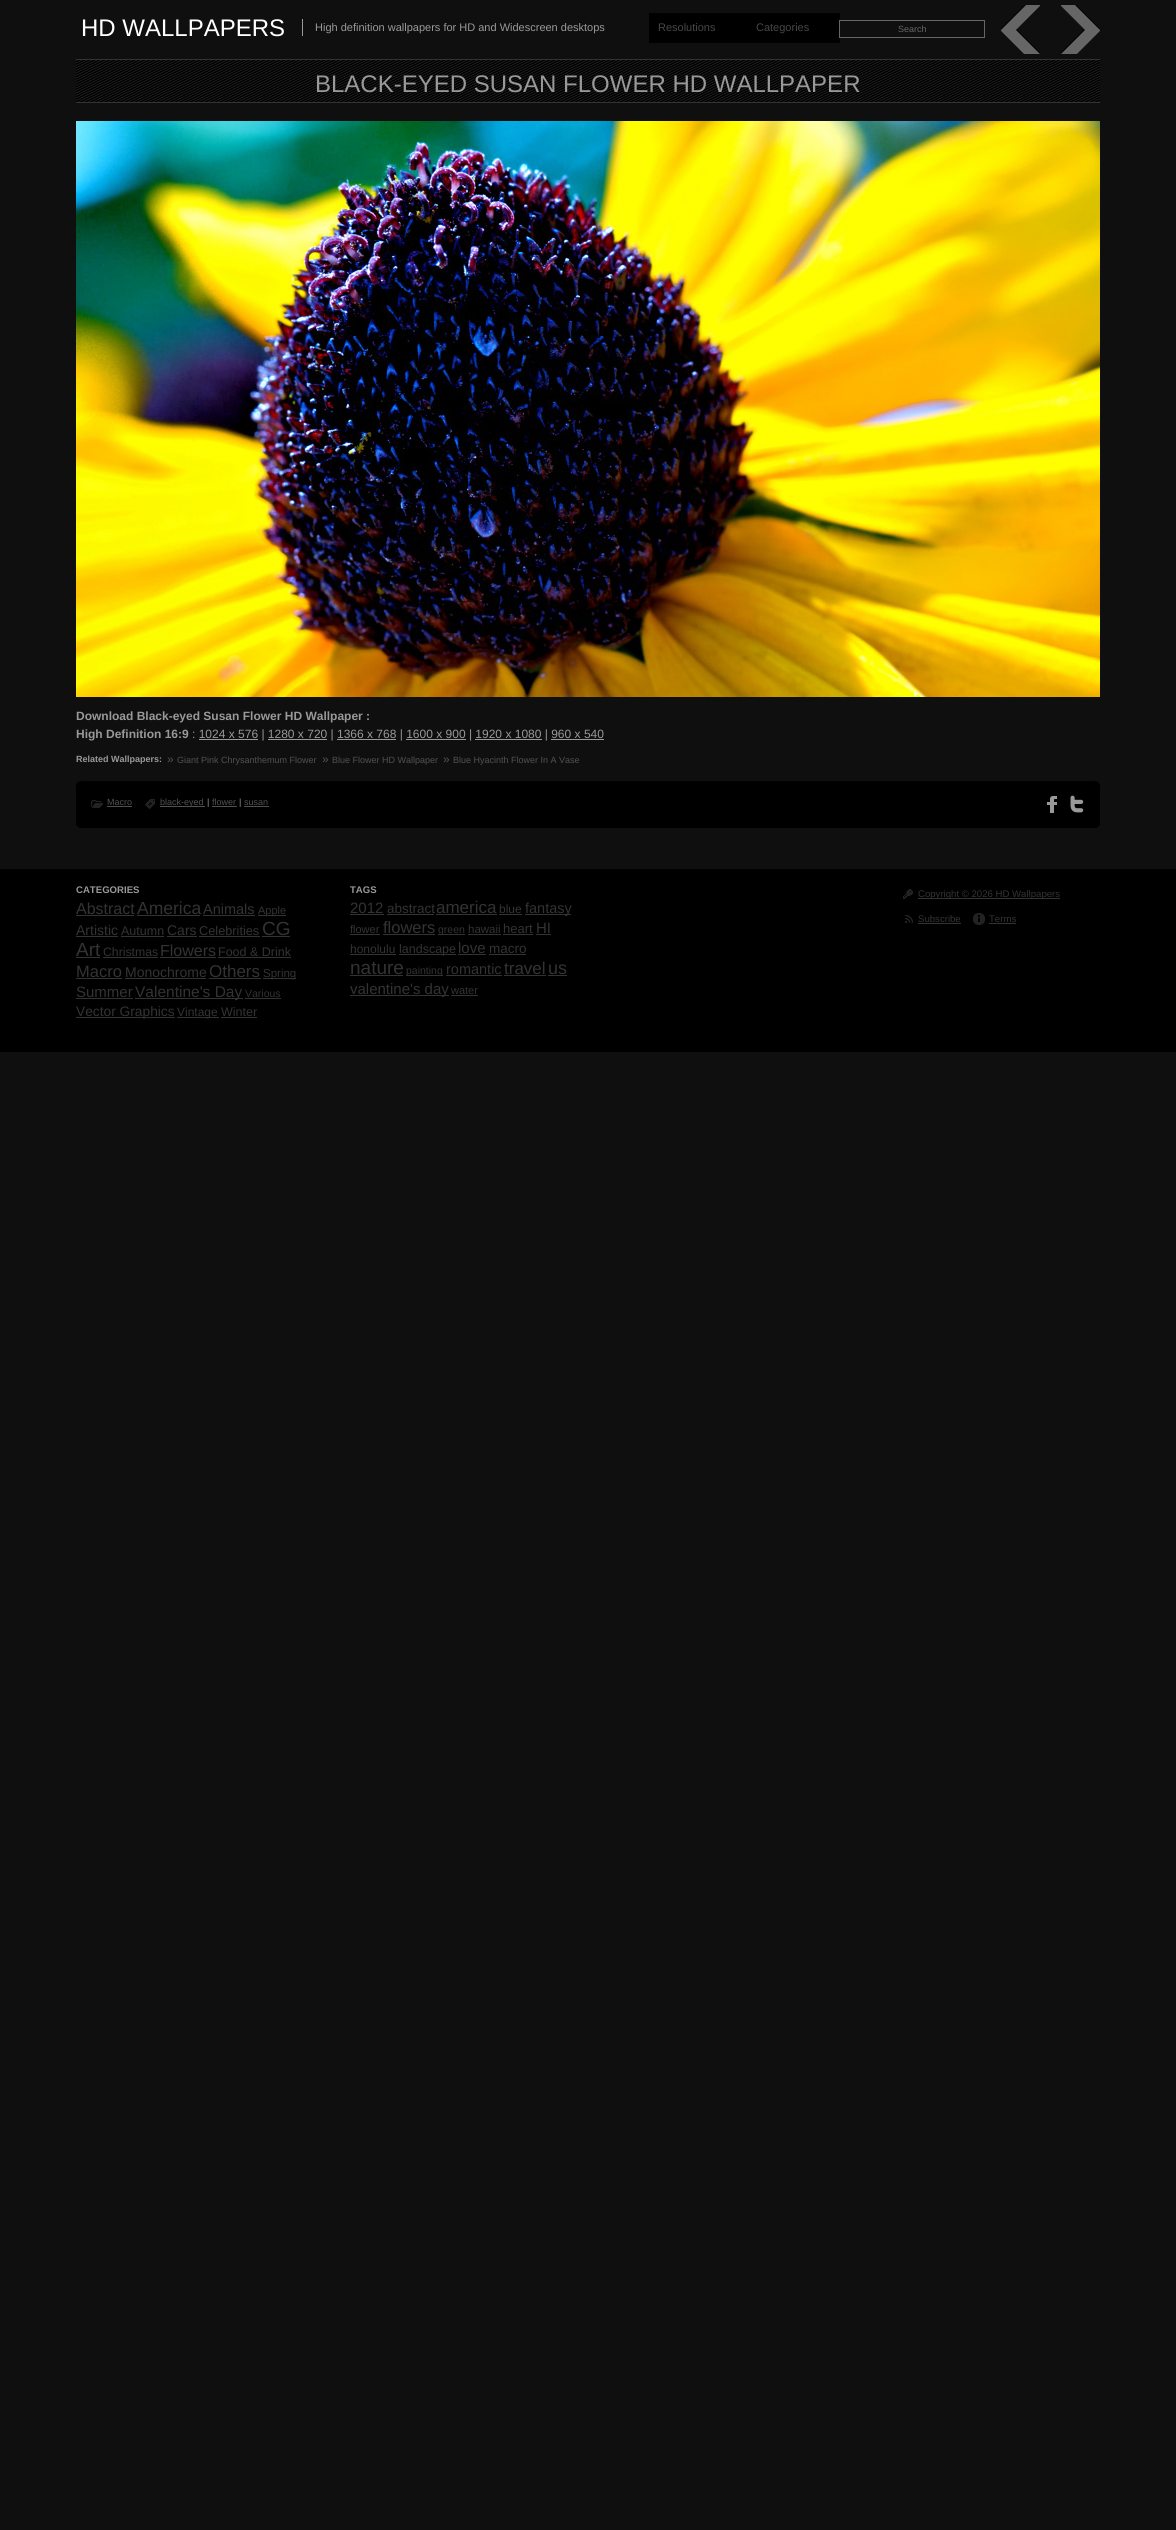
#include <cairo.h>
#include <math.h>
#include <stddef.h>

typedef struct { double x, y, w, h; unsigned color; } box_t;

static void ink(cairo_t *ctx, unsigned color) {
    cairo_set_source_rgb(ctx, (color >> 16) / 255.0, (color >> 8 & 255) / 255.0, (color & 255) / 255.0);
}

static void round_path(cairo_t *ctx, double x, double y, double w, double h, double r) {
    cairo_new_sub_path(ctx);
    cairo_arc(ctx, x + w - r, y + h - r, r, 0, M_PI / 2);
    cairo_arc(ctx, x + r, y + h - r, r, M_PI / 2, M_PI);
    cairo_arc(ctx, x + r, y + r, r, M_PI, 1.5 * M_PI);
    cairo_arc(ctx, x + w - r, y + r, r, 1.5 * M_PI, 2 * M_PI);
    cairo_close_path(ctx);
}

static void paste(cairo_t *ctx, const char *path, double x, double y, double w, double h) {
    cairo_surface_t *image = cairo_image_surface_create_from_png(path);
    cairo_save(ctx);
    cairo_set_source_surface(ctx, image, x, y);
    cairo_rectangle(ctx, x, y, w, h);
    cairo_fill(ctx);
    cairo_restore(ctx);
    cairo_surface_destroy(image);
}

int main(void) {
    cairo_surface_t *surface = cairo_image_surface_create(CAIRO_FORMAT_RGB24, 1176, 2530);
    cairo_t *ctx = cairo_create(surface);
    cairo_font_options_t *options = cairo_font_options_create();
    cairo_font_options_set_hint_metrics(options, CAIRO_HINT_METRICS_OFF);
    cairo_font_options_set_hint_style(options, CAIRO_HINT_STYLE_NONE);
    cairo_set_font_options(ctx, options);
    cairo_set_miter_limit(ctx, 4);
    ink(ctx, 0x0F0F0F);
    cairo_paint(ctx);
    cairo_select_font_face(ctx, "Liberation Sans", CAIRO_FONT_SLANT_NORMAL, CAIRO_FONT_WEIGHT_NORMAL);
    cairo_set_font_size(ctx, 24);
    ink(ctx, 0xFFFFFF);
    cairo_move_to(ctx, 81, 36);
    cairo_show_text(ctx, "HD WALLPAPERS");
    ink(ctx, 0x999999);
    cairo_rectangle(ctx, 302, 19, 1, 17);
    cairo_fill(ctx);
    cairo_set_font_size(ctx, 11);
    cairo_move_to(ctx, 315, 31);
    cairo_show_text(ctx, "High definition wallpapers for HD and Widescreen desktops");
    ink(ctx, 0x000000);
    cairo_rectangle(ctx, 649, 13, 191, 30);
    cairo_fill(ctx);
    ink(ctx, 0x474747);
    cairo_move_to(ctx, 658, 31);
    cairo_show_text(ctx, "Resolutions");
    cairo_move_to(ctx, 756, 31);
    cairo_show_text(ctx, "Categories");
    cairo_rectangle(ctx, 839.5, 20.5, 145, 17);
    ink(ctx, 0x666666);
    cairo_set_line_width(ctx, 1);
    cairo_stroke(ctx);
    cairo_set_font_size(ctx, 9);
    cairo_move_to(ctx, 898, 32);
    cairo_show_text(ctx, "Search");
    paste(ctx, "media/1.png", 1001, 5, 39, 49);
    paste(ctx, "media/2.png", 1061, 5, 39, 49);
    paste(ctx, "media/3.png", 76, 60, 1024, 42);
    ink(ctx, 0x333333);
    cairo_rectangle(ctx, 76, 59, 1024, 1);
    cairo_fill(ctx);
    cairo_rectangle(ctx, 76, 102, 1024, 1);
    cairo_fill(ctx);
    cairo_set_font_size(ctx, 24);
    ink(ctx, 0x999999);
    cairo_move_to(ctx, 315, 92);
    cairo_show_text(ctx, "BLACK-EYED SUSAN FLOWER HD WALLPAPER");
    paste(ctx, "media/4.png", 76, 121, 1024, 576);
    cairo_select_font_face(ctx, "Liberation Sans", CAIRO_FONT_SLANT_NORMAL, CAIRO_FONT_WEIGHT_BOLD);
    cairo_set_font_size(ctx, 12);
    cairo_move_to(ctx, 76, 720);
    cairo_show_text(ctx, "Download Black-eyed Susan Flower HD Wallpaper :");
    cairo_move_to(ctx, 76, 738);
    cairo_show_text(ctx, "High Definition 16:9");
    cairo_select_font_face(ctx, "Liberation Sans", CAIRO_FONT_SLANT_NORMAL, CAIRO_FONT_WEIGHT_NORMAL);
    cairo_move_to(ctx, 192, 738);
    cairo_show_text(ctx, ": 1024 x 576 | 1280 x 720 | 1366 x 768 | 1600 x 900 | 1920 x 1080 | 960 x 540");
    {
        static const box_t items[] = {
            {199, 739, 59, 1, 0x999999},
            {268, 739, 59, 1, 0x999999},
            {337, 739, 59, 1, 0x999999},
            {406, 739, 60, 1, 0x999999},
            {475, 739, 67, 1, 0x999999},
            {551, 739, 53, 1, 0x999999},
        };
        for (size_t i = 0; i < sizeof items / sizeof *items; i++) {
            ink(ctx, items[i].color);
            cairo_rectangle(ctx, items[i].x, items[i].y, items[i].w, items[i].h);
            cairo_fill(ctx);
        }
    }
    cairo_select_font_face(ctx, "Liberation Sans", CAIRO_FONT_SLANT_NORMAL, CAIRO_FONT_WEIGHT_BOLD);
    cairo_set_font_size(ctx, 9);
    cairo_move_to(ctx, 76, 762);
    cairo_show_text(ctx, "Related Wallpapers:");
    cairo_select_font_face(ctx, "Liberation Sans", CAIRO_FONT_SLANT_NORMAL, CAIRO_FONT_WEIGHT_NORMAL);
    cairo_set_font_size(ctx, 12);
    ink(ctx, 0x515151);
    cairo_move_to(ctx, 167, 763);
    cairo_show_text(ctx, "»");
    cairo_set_font_size(ctx, 9);
    cairo_move_to(ctx, 177, 763);
    cairo_show_text(ctx, "Giant Pink Chrysanthemum Flower");
    cairo_set_font_size(ctx, 12);
    cairo_move_to(ctx, 322, 763);
    cairo_show_text(ctx, "»");
    cairo_set_font_size(ctx, 9);
    cairo_move_to(ctx, 332, 763);
    cairo_show_text(ctx, "Blue Flower HD Wallpaper");
    cairo_set_font_size(ctx, 12);
    cairo_move_to(ctx, 443, 763);
    cairo_show_text(ctx, "»");
    cairo_set_font_size(ctx, 9);
    cairo_move_to(ctx, 453, 763);
    cairo_show_text(ctx, "Blue Hyacinth Flower In A Vase");
    ink(ctx, 0x000000);
    round_path(ctx, 76, 781, 1024, 47, 5);
    cairo_fill(ctx);
    paste(ctx, "media/5.png", 91, 800, 12, 8);
    ink(ctx, 0x515151);
    cairo_move_to(ctx, 107, 805);
    cairo_show_text(ctx, "Macro");
    cairo_rectangle(ctx, 107, 806, 25, 1);
    cairo_fill(ctx);
    paste(ctx, "media/6.png", 145, 799, 10, 10);
    cairo_rectangle(ctx, 160, 806, 45, 1);
    cairo_fill(ctx);
    cairo_move_to(ctx, 160, 805);
    cairo_show_text(ctx, "black-eyed");
    ink(ctx, 0x999999);
    cairo_move_to(ctx, 207, 805);
    cairo_show_text(ctx, "|");
    ink(ctx, 0x515151);
    cairo_move_to(ctx, 212, 805);
    cairo_show_text(ctx, "flower");
    cairo_rectangle(ctx, 212, 806, 25, 1);
    cairo_fill(ctx);
    ink(ctx, 0x999999);
    cairo_move_to(ctx, 239, 805);
    cairo_show_text(ctx, "|");
    ink(ctx, 0x515151);
    cairo_move_to(ctx, 244, 805);
    cairo_show_text(ctx, "susan");
    cairo_rectangle(ctx, 244, 806, 25, 1);
    cairo_fill(ctx);
    paste(ctx, "media/7.png", 1046, 796, 11, 17);
    paste(ctx, "media/8.png", 1070, 795, 14, 18);
    ink(ctx, 0x000000);
    cairo_rectangle(ctx, 0, 869, 1176, 183);
    cairo_fill(ctx);
    cairo_select_font_face(ctx, "Liberation Sans", CAIRO_FONT_SLANT_NORMAL, CAIRO_FONT_WEIGHT_BOLD);
    cairo_set_font_size(ctx, 9.6);
    ink(ctx, 0x999999);
    cairo_move_to(ctx, 76, 893);
    cairo_show_text(ctx, "CATEGORIES");
    cairo_select_font_face(ctx, "Liberation Sans", CAIRO_FONT_SLANT_NORMAL, CAIRO_FONT_WEIGHT_NORMAL);
    cairo_set_font_size(ctx, 16);
    ink(ctx, 0x333333);
    cairo_move_to(ctx, 76, 914);
    cairo_show_text(ctx, "Abstract");
    cairo_rectangle(ctx, 76, 915, 58, 1);
    cairo_fill(ctx);
    cairo_set_font_size(ctx, 17.5);
    cairo_move_to(ctx, 137, 914);
    cairo_show_text(ctx, "America");
    cairo_rectangle(ctx, 137, 915, 63, 1);
    cairo_fill(ctx);
    cairo_set_font_size(ctx, 14.5);
    cairo_move_to(ctx, 203, 914);
    cairo_show_text(ctx, "Animals");
    cairo_rectangle(ctx, 203, 915, 52, 1);
    cairo_fill(ctx);
    cairo_rectangle(ctx, 258, 915, 28, 1);
    cairo_fill(ctx);
    cairo_set_font_size(ctx, 11);
    cairo_move_to(ctx, 258, 914);
    cairo_show_text(ctx, "Apple");
    cairo_set_font_size(ctx, 14);
    cairo_move_to(ctx, 76, 935);
    cairo_show_text(ctx, "Artistic");
    cairo_rectangle(ctx, 76, 936, 42, 1);
    cairo_fill(ctx);
    cairo_set_font_size(ctx, 12.5);
    cairo_move_to(ctx, 121, 935);
    cairo_show_text(ctx, "Autumn");
    cairo_rectangle(ctx, 121, 936, 43, 1);
    cairo_fill(ctx);
    cairo_set_font_size(ctx, 14);
    cairo_move_to(ctx, 167, 935);
    cairo_show_text(ctx, "Cars");
    cairo_rectangle(ctx, 167, 936, 30, 1);
    cairo_fill(ctx);
    cairo_set_font_size(ctx, 12.75);
    cairo_move_to(ctx, 199, 935);
    cairo_show_text(ctx, "Celebrities");
    cairo_rectangle(ctx, 199, 936, 61, 1);
    cairo_fill(ctx);
    cairo_set_font_size(ctx, 19);
    cairo_move_to(ctx, 262, 935);
    cairo_show_text(ctx, "CG");
    cairo_rectangle(ctx, 262, 936, 28, 1);
    cairo_fill(ctx);
    cairo_move_to(ctx, 76, 956);
    cairo_show_text(ctx, "Art");
    cairo_rectangle(ctx, 76, 957, 24, 1);
    cairo_fill(ctx);
    cairo_set_font_size(ctx, 12.25);
    cairo_move_to(ctx, 103, 956);
    cairo_show_text(ctx, "Christmas");
    cairo_rectangle(ctx, 103, 957, 55, 1);
    cairo_fill(ctx);
    cairo_set_font_size(ctx, 16);
    cairo_move_to(ctx, 160, 956);
    cairo_show_text(ctx, "Flowers");
    cairo_rectangle(ctx, 160, 957, 56, 1);
    cairo_fill(ctx);
    cairo_set_font_size(ctx, 12.5);
    cairo_move_to(ctx, 218, 956);
    cairo_show_text(ctx, "Food & Drink");
    cairo_rectangle(ctx, 218, 957, 73, 1);
    cairo_fill(ctx);
    cairo_set_font_size(ctx, 16.5);
    cairo_move_to(ctx, 76, 977);
    cairo_show_text(ctx, "Macro");
    cairo_rectangle(ctx, 76, 978, 46, 1);
    cairo_fill(ctx);
    cairo_set_font_size(ctx, 14);
    cairo_move_to(ctx, 125, 977);
    cairo_show_text(ctx, "Monochrome");
    cairo_rectangle(ctx, 125, 978, 81, 1);
    cairo_fill(ctx);
    cairo_set_font_size(ctx, 17);
    cairo_move_to(ctx, 209, 977);
    cairo_show_text(ctx, "Others");
    cairo_rectangle(ctx, 209, 978, 52, 1);
    cairo_fill(ctx);
    cairo_rectangle(ctx, 263, 978, 33, 1);
    cairo_fill(ctx);
    cairo_set_font_size(ctx, 11.5);
    cairo_move_to(ctx, 263, 977);
    cairo_show_text(ctx, "Spring");
    cairo_set_font_size(ctx, 15);
    cairo_move_to(ctx, 76, 997);
    cairo_show_text(ctx, "Summer");
    cairo_rectangle(ctx, 76, 998, 57, 1);
    cairo_fill(ctx);
    cairo_rectangle(ctx, 135, 998, 108, 1);
    cairo_fill(ctx);
    cairo_set_font_size(ctx, 15.5);
    cairo_move_to(ctx, 135, 997);
    cairo_show_text(ctx, "Valentine's Day");
    cairo_set_font_size(ctx, 10.5);
    cairo_move_to(ctx, 245, 997);
    cairo_show_text(ctx, "Various");
    cairo_rectangle(ctx, 245, 998, 36, 1);
    cairo_fill(ctx);
    cairo_rectangle(ctx, 76, 1017, 99, 1);
    cairo_fill(ctx);
    cairo_set_font_size(ctx, 13.75);
    cairo_move_to(ctx, 76, 1016);
    cairo_show_text(ctx, "Vector Graphics");
    cairo_rectangle(ctx, 177, 1017, 42, 1);
    cairo_fill(ctx);
    cairo_set_font_size(ctx, 12);
    cairo_move_to(ctx, 177, 1016);
    cairo_show_text(ctx, "Vintage");
    cairo_set_font_size(ctx, 12.5);
    cairo_move_to(ctx, 221, 1016);
    cairo_show_text(ctx, "Winter");
    cairo_rectangle(ctx, 221, 1017, 36, 1);
    cairo_fill(ctx);
    cairo_select_font_face(ctx, "Liberation Sans", CAIRO_FONT_SLANT_NORMAL, CAIRO_FONT_WEIGHT_BOLD);
    cairo_set_font_size(ctx, 9.6);
    ink(ctx, 0x999999);
    cairo_move_to(ctx, 350, 893);
    cairo_show_text(ctx, "TAGS");
    cairo_select_font_face(ctx, "Liberation Sans", CAIRO_FONT_SLANT_NORMAL, CAIRO_FONT_WEIGHT_NORMAL);
    cairo_set_font_size(ctx, 15);
    ink(ctx, 0x333333);
    cairo_move_to(ctx, 350, 913);
    cairo_show_text(ctx, "2012");
    cairo_rectangle(ctx, 350, 914, 34, 1);
    cairo_fill(ctx);
    cairo_set_font_size(ctx, 13.5);
    cairo_move_to(ctx, 387, 913);
    cairo_show_text(ctx, "abstract");
    cairo_rectangle(ctx, 387, 914, 47, 1);
    cairo_fill(ctx);
    cairo_set_font_size(ctx, 17);
    cairo_move_to(ctx, 436, 913);
    cairo_show_text(ctx, "america");
    cairo_rectangle(ctx, 436, 914, 61, 1);
    cairo_fill(ctx);
    cairo_set_font_size(ctx, 12);
    cairo_move_to(ctx, 499, 913);
    cairo_show_text(ctx, "blue");
    cairo_rectangle(ctx, 499, 914, 23, 1);
    cairo_fill(ctx);
    cairo_rectangle(ctx, 525, 914, 46, 1);
    cairo_fill(ctx);
    cairo_set_font_size(ctx, 14.5);
    cairo_move_to(ctx, 525, 913);
    cairo_show_text(ctx, "fantasy");
    cairo_set_font_size(ctx, 11);
    cairo_move_to(ctx, 350, 933);
    cairo_show_text(ctx, "flower");
    cairo_rectangle(ctx, 350, 934, 30, 1);
    cairo_fill(ctx);
    cairo_set_font_size(ctx, 16.5);
    cairo_move_to(ctx, 383, 933);
    cairo_show_text(ctx, "flowers");
    cairo_rectangle(ctx, 383, 934, 52, 1);
    cairo_fill(ctx);
    cairo_rectangle(ctx, 438, 934, 27, 1);
    cairo_fill(ctx);
    cairo_set_font_size(ctx, 10.5);
    cairo_move_to(ctx, 438, 933);
    cairo_show_text(ctx, "green");
    cairo_set_font_size(ctx, 11.5);
    cairo_move_to(ctx, 468, 933);
    cairo_show_text(ctx, "hawaii");
    cairo_rectangle(ctx, 468, 934, 33, 1);
    cairo_fill(ctx);
    cairo_set_font_size(ctx, 13);
    cairo_move_to(ctx, 503, 933);
    cairo_show_text(ctx, "heart");
    cairo_rectangle(ctx, 503, 934, 30, 1);
    cairo_fill(ctx);
    cairo_set_font_size(ctx, 15);
    cairo_move_to(ctx, 536, 933);
    cairo_show_text(ctx, "HI");
    cairo_rectangle(ctx, 536, 934, 15, 1);
    cairo_fill(ctx);
    cairo_set_font_size(ctx, 12);
    cairo_move_to(ctx, 350, 953);
    cairo_show_text(ctx, "honolulu");
    cairo_rectangle(ctx, 350, 954, 46, 1);
    cairo_fill(ctx);
    cairo_rectangle(ctx, 399, 954, 57, 1);
    cairo_fill(ctx);
    cairo_set_font_size(ctx, 12.5);
    cairo_move_to(ctx, 399, 953);
    cairo_show_text(ctx, "landscape");
    cairo_set_font_size(ctx, 15);
    cairo_move_to(ctx, 458, 953);
    cairo_show_text(ctx, "love");
    cairo_rectangle(ctx, 458, 954, 28, 1);
    cairo_fill(ctx);
    cairo_set_font_size(ctx, 13.5);
    cairo_move_to(ctx, 489, 953);
    cairo_show_text(ctx, "macro");
    cairo_rectangle(ctx, 489, 954, 37, 1);
    cairo_fill(ctx);
    cairo_set_font_size(ctx, 19);
    cairo_move_to(ctx, 350, 974);
    cairo_show_text(ctx, "nature");
    cairo_rectangle(ctx, 350, 975, 53, 1);
    cairo_fill(ctx);
    cairo_rectangle(ctx, 406, 975, 37, 1);
    cairo_fill(ctx);
    cairo_set_font_size(ctx, 10.5);
    cairo_move_to(ctx, 406, 974);
    cairo_show_text(ctx, "painting");
    cairo_set_font_size(ctx, 14.5);
    cairo_move_to(ctx, 446, 974);
    cairo_show_text(ctx, "romantic");
    cairo_rectangle(ctx, 446, 975, 56, 1);
    cairo_fill(ctx);
    cairo_set_font_size(ctx, 17);
    cairo_move_to(ctx, 504, 974);
    cairo_show_text(ctx, "travel");
    cairo_rectangle(ctx, 504, 975, 42, 1);
    cairo_fill(ctx);
    cairo_set_font_size(ctx, 18);
    cairo_move_to(ctx, 548, 974);
    cairo_show_text(ctx, "us");
    cairo_rectangle(ctx, 548, 975, 19, 1);
    cairo_fill(ctx);
    cairo_rectangle(ctx, 350, 995, 99, 1);
    cairo_fill(ctx);
    cairo_set_font_size(ctx, 15);
    cairo_move_to(ctx, 350, 994);
    cairo_show_text(ctx, "valentine's day");
    cairo_set_font_size(ctx, 11);
    cairo_move_to(ctx, 451, 994);
    cairo_show_text(ctx, "water");
    cairo_rectangle(ctx, 451, 995, 27, 1);
    cairo_fill(ctx);
    paste(ctx, "media/9.png", 903, 889, 10, 10);
    cairo_rectangle(ctx, 918, 898, 142, 1);
    cairo_fill(ctx);
    cairo_set_font_size(ctx, 9.6);
    cairo_move_to(ctx, 918, 897);
    cairo_show_text(ctx, "Copyright © 2026 HD Wallpapers");
    paste(ctx, "media/10.png", 905, 915, 8, 8);
    cairo_move_to(ctx, 918, 922);
    cairo_show_text(ctx, "Subscribe");
    cairo_rectangle(ctx, 918, 923, 43, 1);
    cairo_fill(ctx);
    paste(ctx, "media/11.png", 973, 913, 12, 12);
    cairo_move_to(ctx, 989, 922);
    cairo_show_text(ctx, "Terms");
    cairo_rectangle(ctx, 989, 923, 27, 1);
    cairo_fill(ctx);
    cairo_surface_write_to_png(surface, "image.png");
    cairo_font_options_destroy(options);
    cairo_destroy(ctx);
    cairo_surface_destroy(surface);
    return 0;
}
